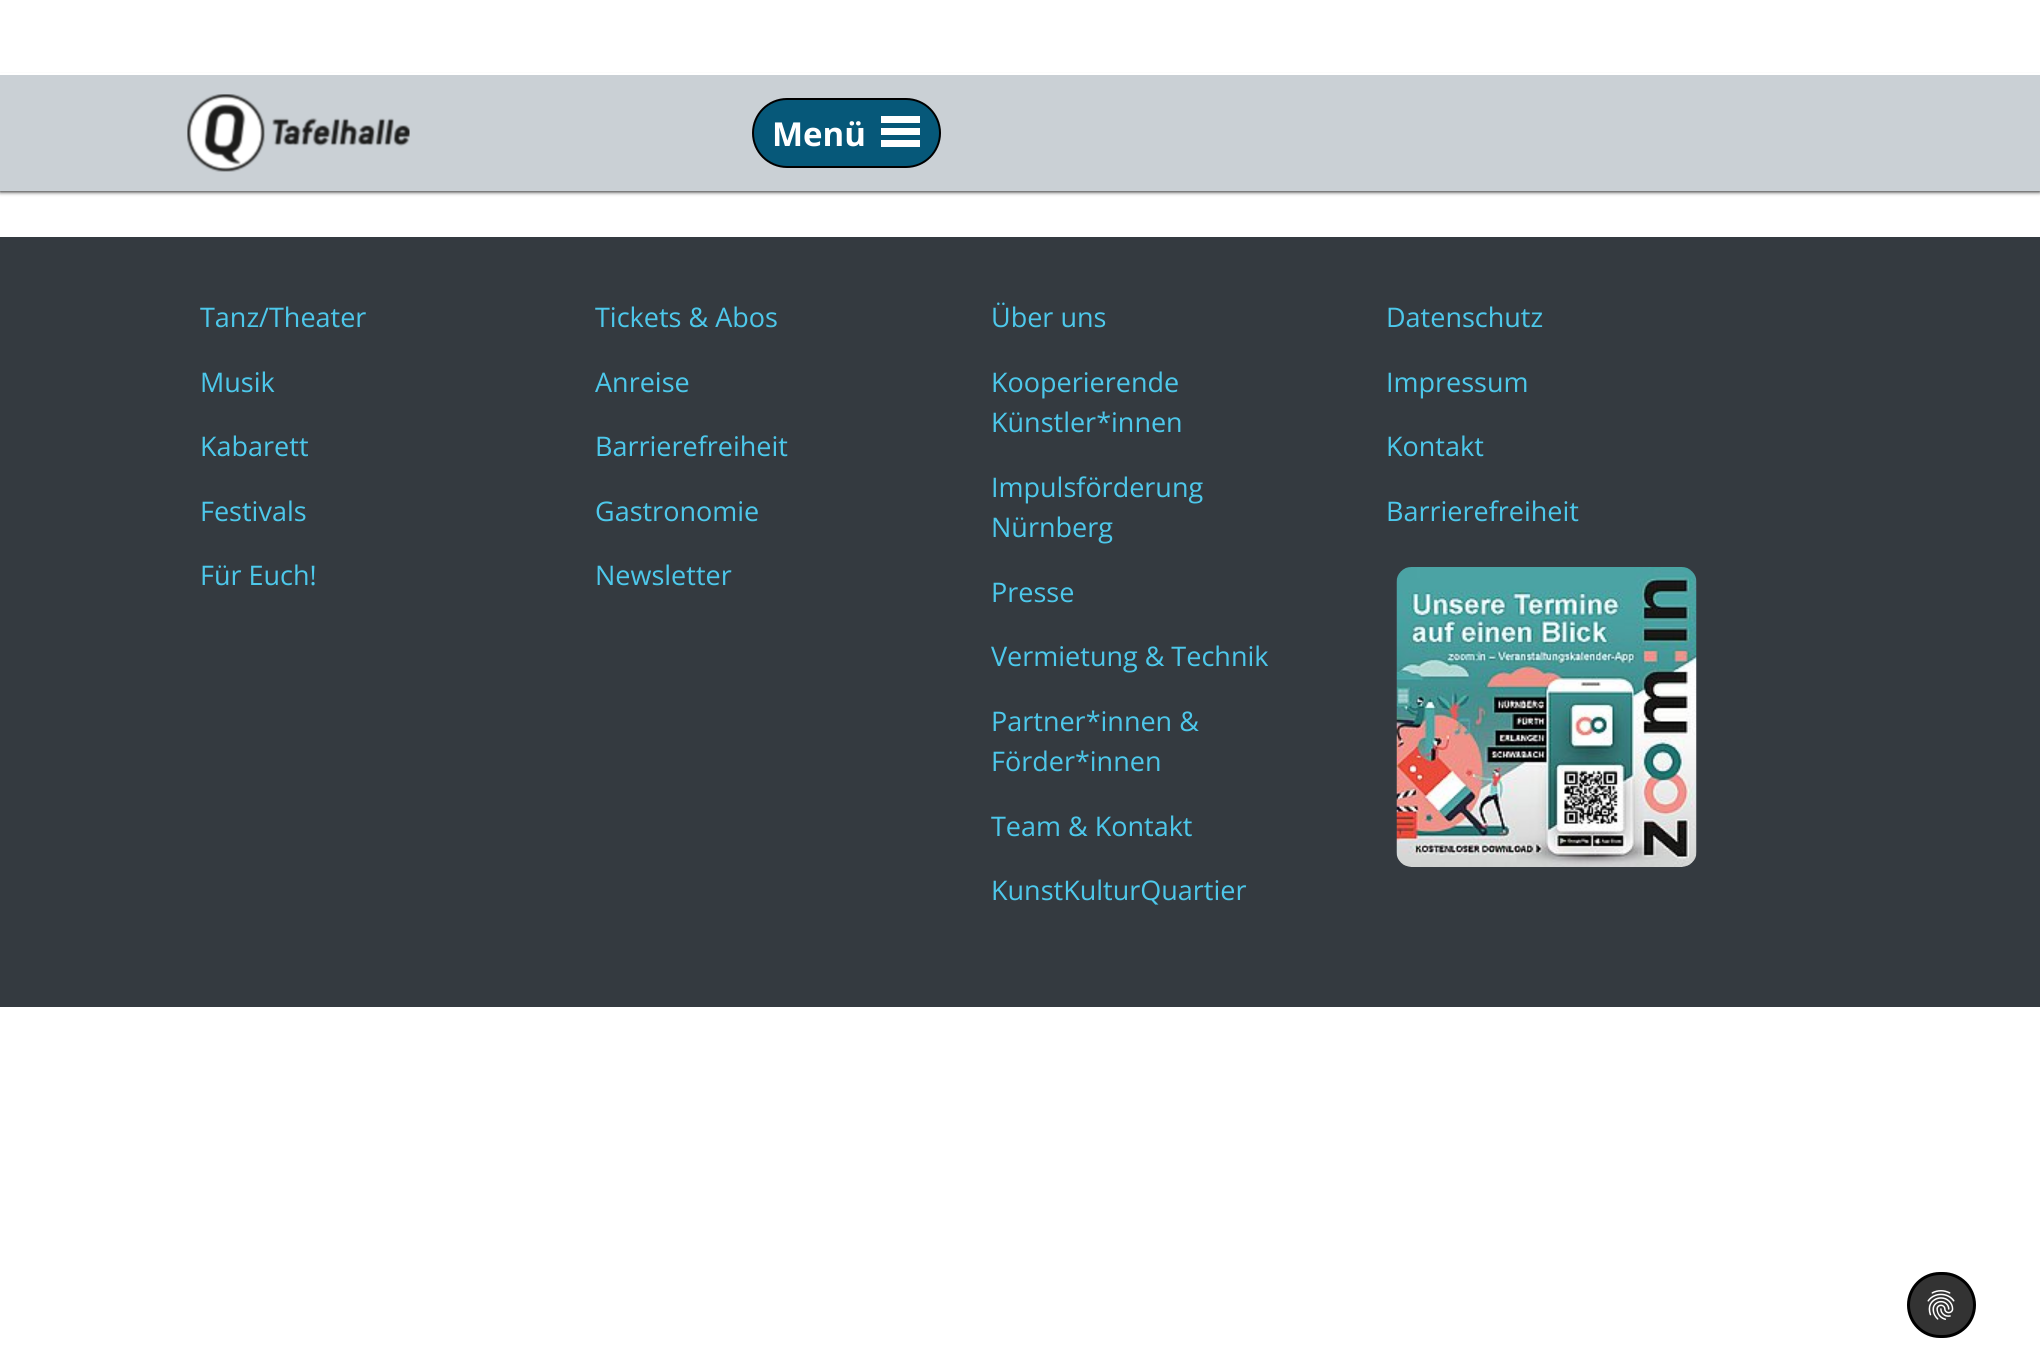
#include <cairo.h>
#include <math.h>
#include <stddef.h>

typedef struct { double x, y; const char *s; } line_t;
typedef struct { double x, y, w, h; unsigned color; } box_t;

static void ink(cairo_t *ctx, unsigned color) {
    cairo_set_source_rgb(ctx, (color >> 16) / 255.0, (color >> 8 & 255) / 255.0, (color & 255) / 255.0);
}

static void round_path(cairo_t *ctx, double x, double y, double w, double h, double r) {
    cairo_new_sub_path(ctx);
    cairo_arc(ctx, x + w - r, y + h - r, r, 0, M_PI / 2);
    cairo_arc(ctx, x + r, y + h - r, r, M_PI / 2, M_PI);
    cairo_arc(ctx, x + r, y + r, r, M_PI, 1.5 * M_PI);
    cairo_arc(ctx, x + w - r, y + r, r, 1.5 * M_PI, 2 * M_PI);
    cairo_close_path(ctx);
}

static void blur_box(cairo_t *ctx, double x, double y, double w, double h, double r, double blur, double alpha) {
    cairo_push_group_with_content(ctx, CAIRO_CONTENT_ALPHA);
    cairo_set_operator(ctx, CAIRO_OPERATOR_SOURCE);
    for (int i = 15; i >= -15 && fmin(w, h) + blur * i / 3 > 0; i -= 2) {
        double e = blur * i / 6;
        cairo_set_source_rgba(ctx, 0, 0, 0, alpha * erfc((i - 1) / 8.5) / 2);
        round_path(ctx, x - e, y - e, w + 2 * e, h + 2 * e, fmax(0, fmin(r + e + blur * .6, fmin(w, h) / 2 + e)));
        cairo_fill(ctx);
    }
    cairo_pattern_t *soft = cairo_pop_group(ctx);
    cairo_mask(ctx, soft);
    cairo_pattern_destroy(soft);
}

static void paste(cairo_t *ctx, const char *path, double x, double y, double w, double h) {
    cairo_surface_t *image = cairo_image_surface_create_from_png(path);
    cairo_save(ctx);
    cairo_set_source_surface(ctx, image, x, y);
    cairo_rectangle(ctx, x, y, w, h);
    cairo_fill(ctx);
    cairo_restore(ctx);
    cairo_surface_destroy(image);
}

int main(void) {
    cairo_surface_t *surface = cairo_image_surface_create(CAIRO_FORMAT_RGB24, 2040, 1358);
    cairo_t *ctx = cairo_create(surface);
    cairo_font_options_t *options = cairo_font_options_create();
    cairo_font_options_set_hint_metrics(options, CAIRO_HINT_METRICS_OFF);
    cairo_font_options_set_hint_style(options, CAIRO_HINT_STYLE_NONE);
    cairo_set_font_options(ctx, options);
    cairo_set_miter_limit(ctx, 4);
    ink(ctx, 0xFFFFFF);
    cairo_paint(ctx);
    ink(ctx, 0x222222);
    blur_box(ctx, 0, 77, 2040, 115, 0, 2, 1);
    ink(ctx, 0xFFFFFF);
    cairo_rectangle(ctx, 0, 73, 2040, 2);
    cairo_fill(ctx);
    ink(ctx, 0xCAD0D5);
    cairo_rectangle(ctx, 0, 75, 2040, 116);
    cairo_fill(ctx);
    paste(ctx, "media/1.png", 187, 94, 223, 78);
    ink(ctx, 0x065879);
    round_path(ctx, 753, 99, 187, 68, 34);
    cairo_fill_preserve(ctx);
    ink(ctx, 0x000000);
    cairo_stroke(ctx);
    cairo_select_font_face(ctx, "Open Sans", CAIRO_FONT_SLANT_NORMAL, CAIRO_FONT_WEIGHT_BOLD);
    cairo_set_font_size(ctx, 33);
    ink(ctx, 0xFFFFFF);
    cairo_move_to(ctx, 772, 146);
    cairo_show_text(ctx, "Menü");
    {
        static const box_t items[] = {
            {881, 116, 39, 7, 0xFFFFFF},
            {881, 128, 39, 7, 0xFFFFFF},
            {881, 140, 39, 7, 0xFFFFFF},
            {0, 237, 2040, 770, 0x343A40},
        };
        for (size_t i = 0; i < sizeof items / sizeof *items; i++) {
            ink(ctx, items[i].color);
            cairo_rectangle(ctx, items[i].x, items[i].y, items[i].w, items[i].h);
            cairo_fill(ctx);
        }
    }
    cairo_select_font_face(ctx, "Open Sans", CAIRO_FONT_SLANT_NORMAL, CAIRO_FONT_WEIGHT_NORMAL);
    cairo_set_font_size(ctx, 27);
    ink(ctx, 0x4DC8EB);
    {
        static const line_t items[] = {
            {200, 327, "Tanz/Theater"},
            {200, 392, "Musik"},
            {200, 456, "Kabarett"},
            {200, 521, "Festivals"},
            {200, 585, "Für Euch!"},
            {595, 327, "Tickets & Abos"},
            {595, 392, "Anreise"},
            {595, 456, "Barrierefreiheit"},
            {595, 521, "Gastronomie"},
            {595, 585, "Newsletter"},
            {991, 327, "Über uns"},
            {991, 392, "Kooperierende"},
            {991, 432, "Künstler*innen"},
            {991, 497, "Impulsförderung"},
            {991, 537, "Nürnberg"},
            {991, 602, "Presse"},
            {991, 666, "Vermietung & Technik"},
            {991, 731, "Partner*innen &"},
            {991, 771, "Förder*innen"},
            {991, 836, "Team & Kontakt"},
            {991, 900, "KunstKulturQuartier"},
            {1386, 327, "Datenschutz"},
            {1386, 392, "Impressum"},
            {1386, 456, "Kontakt"},
            {1386, 521, "Barrierefreiheit"},
        };
        for (size_t i = 0; i < sizeof items / sizeof *items; i++) {
            cairo_move_to(ctx, items[i].x, items[i].y);
            cairo_show_text(ctx, items[i].s);
        }
    }
    paste(ctx, "media/2.png", 1396, 567, 301, 300);
    ink(ctx, 0x333333);
    round_path(ctx, 1908.5, 1273.5, 66, 63, 31.5);
    cairo_fill_preserve(ctx);
    ink(ctx, 0x000000);
    cairo_set_line_width(ctx, 3);
    cairo_stroke(ctx);
    paste(ctx, "media/3.png", 1927, 1290, 28, 30);
    cairo_surface_write_to_png(surface, "image.png");
    cairo_font_options_destroy(options);
    cairo_destroy(ctx);
    cairo_surface_destroy(surface);
    return 0;
}
